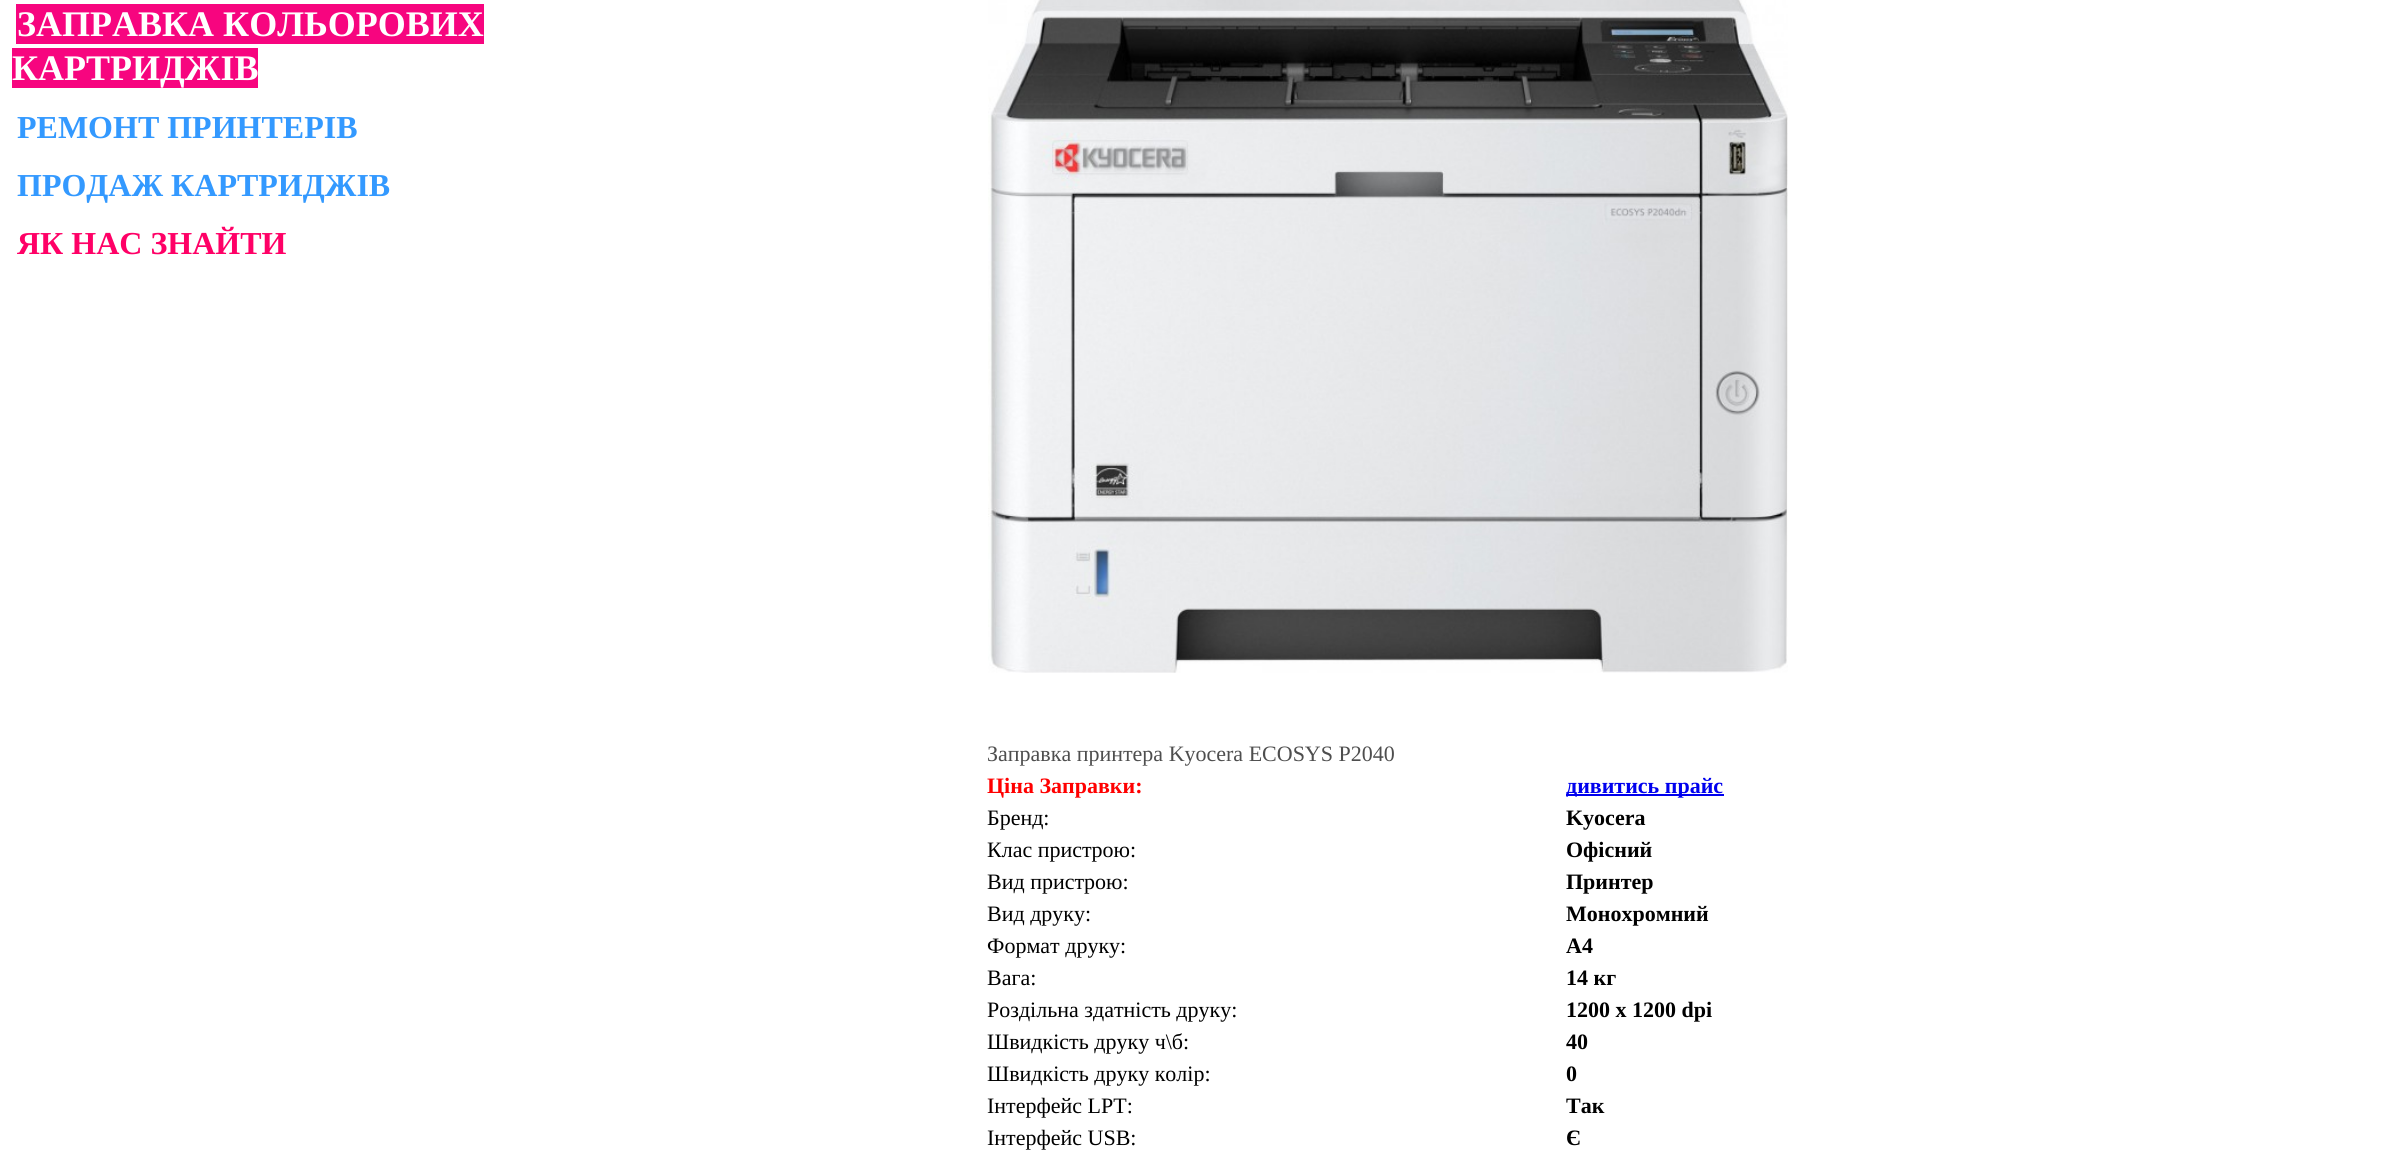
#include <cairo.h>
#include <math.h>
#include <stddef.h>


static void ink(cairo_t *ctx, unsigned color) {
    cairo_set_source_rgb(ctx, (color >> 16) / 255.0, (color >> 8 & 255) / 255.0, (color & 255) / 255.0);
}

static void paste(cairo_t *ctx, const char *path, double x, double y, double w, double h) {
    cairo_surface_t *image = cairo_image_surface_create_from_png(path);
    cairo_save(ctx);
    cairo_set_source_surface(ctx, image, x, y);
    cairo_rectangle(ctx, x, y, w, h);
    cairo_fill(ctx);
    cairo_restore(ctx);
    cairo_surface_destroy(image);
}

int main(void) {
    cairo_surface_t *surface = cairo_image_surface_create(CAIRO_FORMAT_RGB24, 2408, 1172);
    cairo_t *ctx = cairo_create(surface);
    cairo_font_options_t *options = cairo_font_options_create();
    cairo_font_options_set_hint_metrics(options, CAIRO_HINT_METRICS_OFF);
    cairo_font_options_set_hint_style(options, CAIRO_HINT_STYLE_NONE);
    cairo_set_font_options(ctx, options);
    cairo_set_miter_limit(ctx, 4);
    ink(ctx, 0xFFFFFF);
    cairo_paint(ctx);
    ink(ctx, 0xF7057F);
    cairo_rectangle(ctx, 16, 4, 468, 40);
    cairo_fill(ctx);
    cairo_select_font_face(ctx, "Liberation Serif", CAIRO_FONT_SLANT_NORMAL, CAIRO_FONT_WEIGHT_BOLD);
    cairo_set_font_size(ctx, 36);
    ink(ctx, 0xFFFFFF);
    cairo_move_to(ctx, 17, 36);
    cairo_show_text(ctx, "ЗАПРАВКА КОЛЬОРОВИХ");
    ink(ctx, 0xF7057F);
    cairo_rectangle(ctx, 12, 48, 246, 40);
    cairo_fill(ctx);
    ink(ctx, 0xFFFFFF);
    cairo_move_to(ctx, 12, 80);
    cairo_show_text(ctx, "КАРТРИДЖІВ");
    cairo_set_font_size(ctx, 32);
    ink(ctx, 0x3399FF);
    cairo_move_to(ctx, 17, 138);
    cairo_show_text(ctx, "РЕМОНТ ПРИНТЕРІВ");
    cairo_move_to(ctx, 17, 196);
    cairo_show_text(ctx, "ПРОДАЖ КАРТРИДЖІВ");
    ink(ctx, 0xFF0066);
    cairo_move_to(ctx, 17, 254);
    cairo_show_text(ctx, "ЯК НАС ЗНАЙТИ");
    paste(ctx, "media/1.png", 988, 0, 800, 673);
    cairo_select_font_face(ctx, "Liberation Serif", CAIRO_FONT_SLANT_NORMAL, CAIRO_FONT_WEIGHT_NORMAL);
    cairo_set_font_size(ctx, 22);
    ink(ctx, 0x4E4E4E);
    cairo_move_to(ctx, 987, 761);
    cairo_show_text(ctx, "Заправка принтера Kyocera ECOSYS P2040");
    cairo_select_font_face(ctx, "Liberation Serif", CAIRO_FONT_SLANT_NORMAL, CAIRO_FONT_WEIGHT_BOLD);
    ink(ctx, 0xFF0000);
    cairo_move_to(ctx, 987, 793);
    cairo_show_text(ctx, "Ціна Заправки:");
    ink(ctx, 0x0000EE);
    cairo_rectangle(ctx, 1566, 794, 158, 2);
    cairo_fill(ctx);
    cairo_move_to(ctx, 1566, 793);
    cairo_show_text(ctx, "дивитись прайс");
    cairo_select_font_face(ctx, "Liberation Serif", CAIRO_FONT_SLANT_NORMAL, CAIRO_FONT_WEIGHT_NORMAL);
    ink(ctx, 0x000000);
    cairo_move_to(ctx, 987, 825);
    cairo_show_text(ctx, "Бренд:");
    cairo_select_font_face(ctx, "Liberation Serif", CAIRO_FONT_SLANT_NORMAL, CAIRO_FONT_WEIGHT_BOLD);
    cairo_move_to(ctx, 1566, 825);
    cairo_show_text(ctx, "Kyocera");
    cairo_select_font_face(ctx, "Liberation Serif", CAIRO_FONT_SLANT_NORMAL, CAIRO_FONT_WEIGHT_NORMAL);
    cairo_move_to(ctx, 987, 857);
    cairo_show_text(ctx, "Клас пристрою:");
    cairo_select_font_face(ctx, "Liberation Serif", CAIRO_FONT_SLANT_NORMAL, CAIRO_FONT_WEIGHT_BOLD);
    cairo_move_to(ctx, 1566, 857);
    cairo_show_text(ctx, "Офісний");
    cairo_select_font_face(ctx, "Liberation Serif", CAIRO_FONT_SLANT_NORMAL, CAIRO_FONT_WEIGHT_NORMAL);
    cairo_move_to(ctx, 987, 889);
    cairo_show_text(ctx, "Вид пристрою:");
    cairo_select_font_face(ctx, "Liberation Serif", CAIRO_FONT_SLANT_NORMAL, CAIRO_FONT_WEIGHT_BOLD);
    cairo_move_to(ctx, 1566, 889);
    cairo_show_text(ctx, "Принтер");
    cairo_select_font_face(ctx, "Liberation Serif", CAIRO_FONT_SLANT_NORMAL, CAIRO_FONT_WEIGHT_NORMAL);
    cairo_move_to(ctx, 987, 921);
    cairo_show_text(ctx, "Вид друку:");
    cairo_select_font_face(ctx, "Liberation Serif", CAIRO_FONT_SLANT_NORMAL, CAIRO_FONT_WEIGHT_BOLD);
    cairo_move_to(ctx, 1566, 921);
    cairo_show_text(ctx, "Монохромний");
    cairo_select_font_face(ctx, "Liberation Serif", CAIRO_FONT_SLANT_NORMAL, CAIRO_FONT_WEIGHT_NORMAL);
    cairo_move_to(ctx, 987, 953);
    cairo_show_text(ctx, "Формат друку:");
    cairo_select_font_face(ctx, "Liberation Serif", CAIRO_FONT_SLANT_NORMAL, CAIRO_FONT_WEIGHT_BOLD);
    cairo_move_to(ctx, 1566, 953);
    cairo_show_text(ctx, "А4");
    cairo_select_font_face(ctx, "Liberation Serif", CAIRO_FONT_SLANT_NORMAL, CAIRO_FONT_WEIGHT_NORMAL);
    cairo_move_to(ctx, 987, 985);
    cairo_show_text(ctx, "Вага:");
    cairo_select_font_face(ctx, "Liberation Serif", CAIRO_FONT_SLANT_NORMAL, CAIRO_FONT_WEIGHT_BOLD);
    cairo_move_to(ctx, 1566, 985);
    cairo_show_text(ctx, "14 кг");
    cairo_select_font_face(ctx, "Liberation Serif", CAIRO_FONT_SLANT_NORMAL, CAIRO_FONT_WEIGHT_NORMAL);
    cairo_move_to(ctx, 987, 1017);
    cairo_show_text(ctx, "Роздільна здатність друку:");
    cairo_select_font_face(ctx, "Liberation Serif", CAIRO_FONT_SLANT_NORMAL, CAIRO_FONT_WEIGHT_BOLD);
    cairo_move_to(ctx, 1566, 1017);
    cairo_show_text(ctx, "1200 х 1200 dpi");
    cairo_select_font_face(ctx, "Liberation Serif", CAIRO_FONT_SLANT_NORMAL, CAIRO_FONT_WEIGHT_NORMAL);
    cairo_move_to(ctx, 987, 1049);
    cairo_show_text(ctx, "Швидкість друку ч\\б:");
    cairo_select_font_face(ctx, "Liberation Serif", CAIRO_FONT_SLANT_NORMAL, CAIRO_FONT_WEIGHT_BOLD);
    cairo_move_to(ctx, 1566, 1049);
    cairo_show_text(ctx, "40");
    cairo_select_font_face(ctx, "Liberation Serif", CAIRO_FONT_SLANT_NORMAL, CAIRO_FONT_WEIGHT_NORMAL);
    cairo_move_to(ctx, 987, 1081);
    cairo_show_text(ctx, "Швидкість друку колір:");
    cairo_select_font_face(ctx, "Liberation Serif", CAIRO_FONT_SLANT_NORMAL, CAIRO_FONT_WEIGHT_BOLD);
    cairo_move_to(ctx, 1566, 1081);
    cairo_show_text(ctx, "0");
    cairo_select_font_face(ctx, "Liberation Serif", CAIRO_FONT_SLANT_NORMAL, CAIRO_FONT_WEIGHT_NORMAL);
    cairo_move_to(ctx, 987, 1113);
    cairo_show_text(ctx, "Інтерфейс LPT:");
    cairo_select_font_face(ctx, "Liberation Serif", CAIRO_FONT_SLANT_NORMAL, CAIRO_FONT_WEIGHT_BOLD);
    cairo_move_to(ctx, 1566, 1113);
    cairo_show_text(ctx, "Так");
    cairo_select_font_face(ctx, "Liberation Serif", CAIRO_FONT_SLANT_NORMAL, CAIRO_FONT_WEIGHT_NORMAL);
    cairo_move_to(ctx, 987, 1145);
    cairo_show_text(ctx, "Інтерфейс USB:");
    cairo_select_font_face(ctx, "Liberation Serif", CAIRO_FONT_SLANT_NORMAL, CAIRO_FONT_WEIGHT_BOLD);
    cairo_move_to(ctx, 1566, 1145);
    cairo_show_text(ctx, "Є");
    cairo_surface_write_to_png(surface, "image.png");
    cairo_font_options_destroy(options);
    cairo_destroy(ctx);
    cairo_surface_destroy(surface);
    return 0;
}
